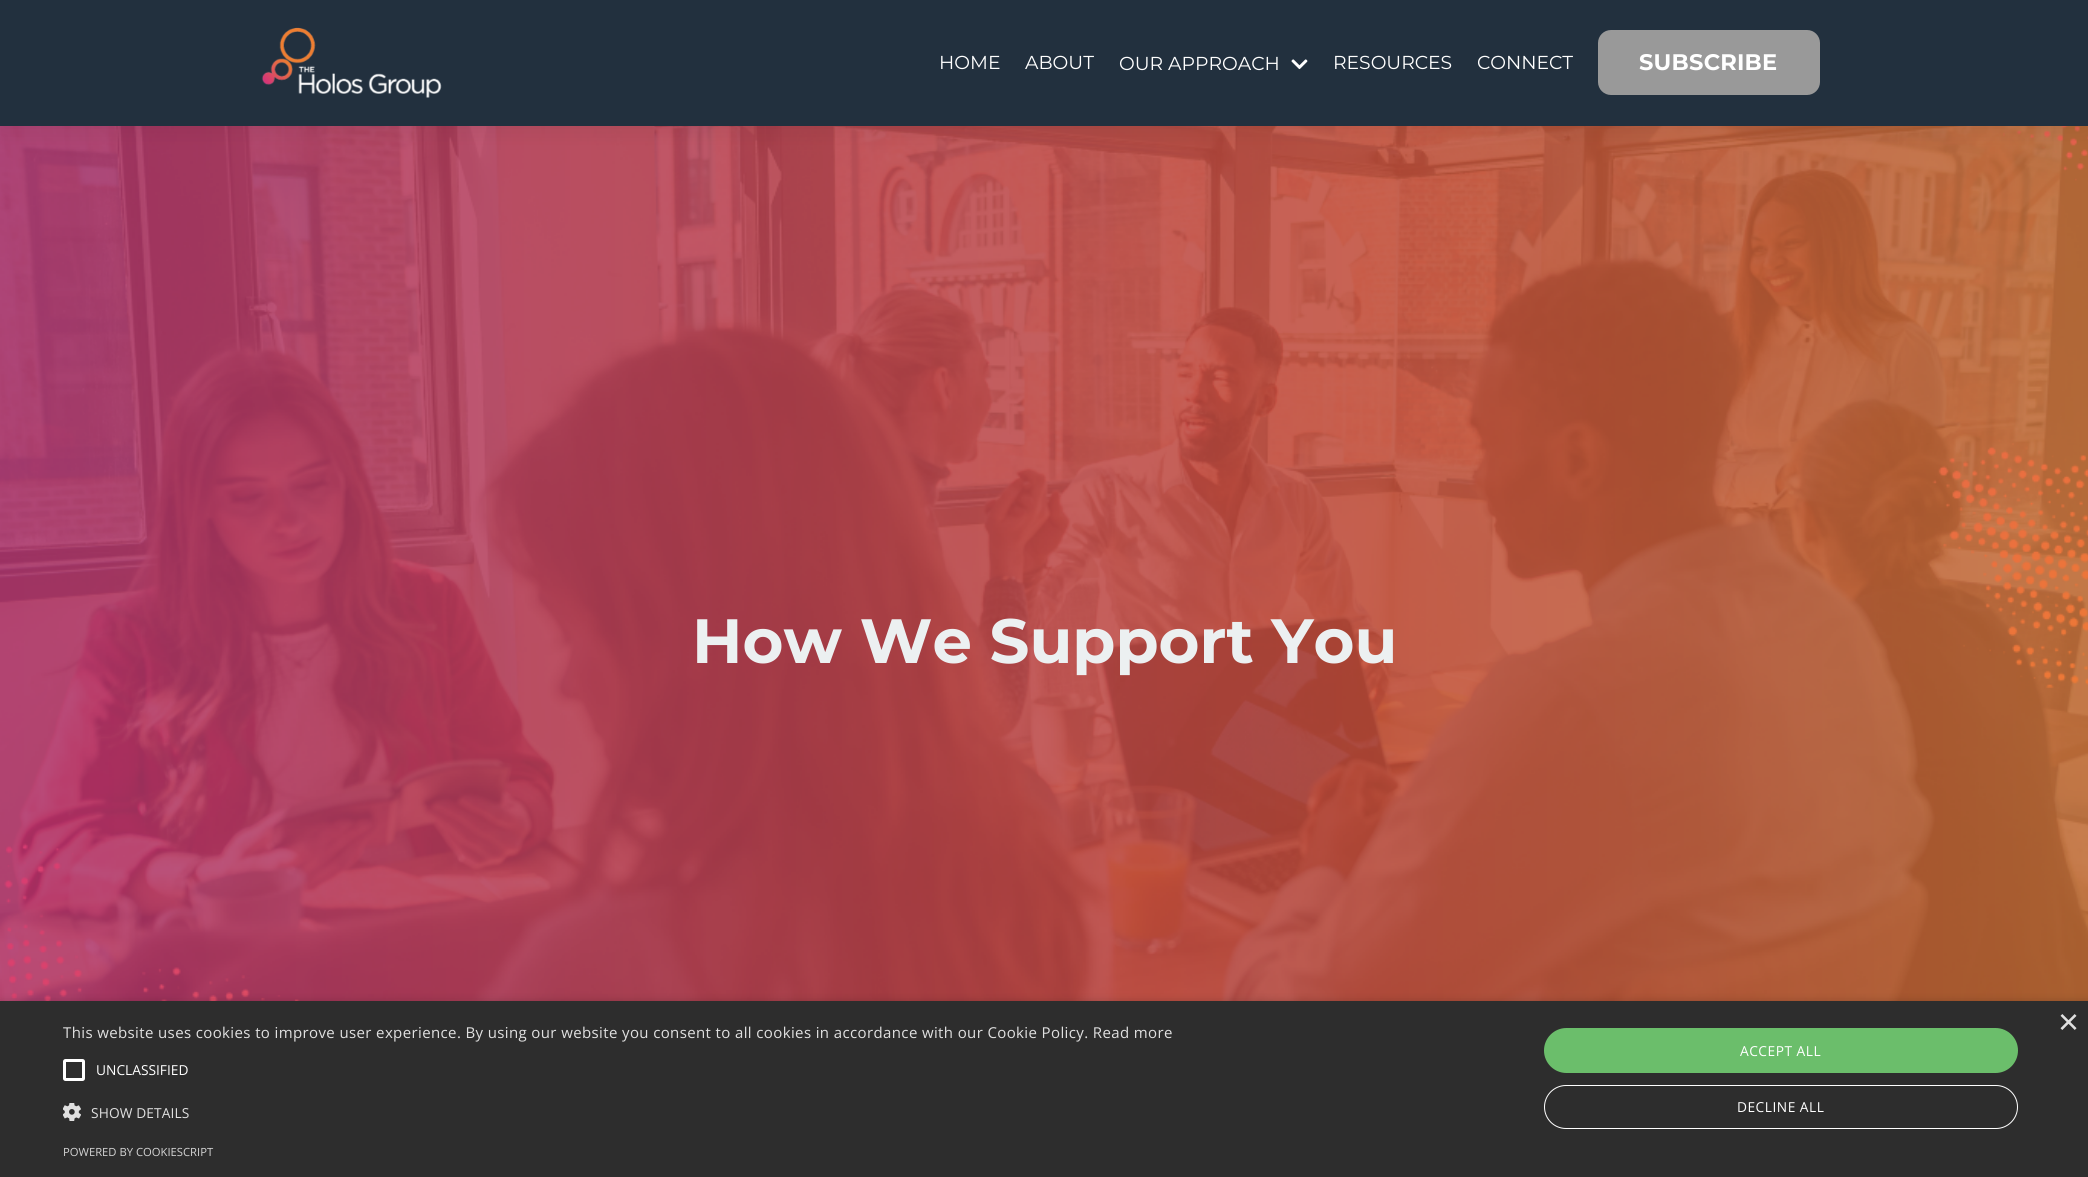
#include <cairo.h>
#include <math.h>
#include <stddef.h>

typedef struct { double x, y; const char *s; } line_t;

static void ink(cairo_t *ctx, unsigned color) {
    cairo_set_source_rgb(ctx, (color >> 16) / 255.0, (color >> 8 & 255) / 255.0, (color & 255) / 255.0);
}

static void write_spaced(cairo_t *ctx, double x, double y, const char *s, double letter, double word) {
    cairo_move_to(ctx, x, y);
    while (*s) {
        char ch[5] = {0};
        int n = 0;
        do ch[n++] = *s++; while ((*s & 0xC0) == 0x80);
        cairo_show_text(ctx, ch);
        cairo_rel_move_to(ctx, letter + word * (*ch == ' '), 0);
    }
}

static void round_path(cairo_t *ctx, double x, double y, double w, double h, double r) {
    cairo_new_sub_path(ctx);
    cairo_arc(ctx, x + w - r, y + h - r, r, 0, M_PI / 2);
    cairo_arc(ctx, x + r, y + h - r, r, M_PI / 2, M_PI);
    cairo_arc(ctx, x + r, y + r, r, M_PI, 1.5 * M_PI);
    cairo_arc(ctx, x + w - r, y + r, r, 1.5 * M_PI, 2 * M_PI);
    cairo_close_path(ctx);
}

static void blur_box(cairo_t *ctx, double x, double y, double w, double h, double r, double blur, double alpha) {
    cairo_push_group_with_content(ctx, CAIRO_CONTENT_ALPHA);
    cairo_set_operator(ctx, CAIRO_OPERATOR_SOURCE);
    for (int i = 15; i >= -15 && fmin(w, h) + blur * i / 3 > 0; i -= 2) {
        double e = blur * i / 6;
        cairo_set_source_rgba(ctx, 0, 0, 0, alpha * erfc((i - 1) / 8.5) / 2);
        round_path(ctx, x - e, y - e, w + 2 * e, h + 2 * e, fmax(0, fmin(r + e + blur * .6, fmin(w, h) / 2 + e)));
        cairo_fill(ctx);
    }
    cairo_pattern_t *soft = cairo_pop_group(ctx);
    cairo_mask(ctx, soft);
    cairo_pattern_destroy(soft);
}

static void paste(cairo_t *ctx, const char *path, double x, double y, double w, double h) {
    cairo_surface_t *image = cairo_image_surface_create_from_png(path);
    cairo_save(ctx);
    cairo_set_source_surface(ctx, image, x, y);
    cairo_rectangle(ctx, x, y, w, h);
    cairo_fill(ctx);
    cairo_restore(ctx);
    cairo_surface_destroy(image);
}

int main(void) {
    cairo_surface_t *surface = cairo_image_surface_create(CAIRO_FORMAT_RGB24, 2088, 1177);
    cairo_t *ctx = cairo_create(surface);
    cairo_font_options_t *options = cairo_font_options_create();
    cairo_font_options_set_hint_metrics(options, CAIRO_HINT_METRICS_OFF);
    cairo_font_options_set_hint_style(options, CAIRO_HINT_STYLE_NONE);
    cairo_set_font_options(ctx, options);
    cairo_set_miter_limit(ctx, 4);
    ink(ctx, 0xFFFFFF);
    cairo_paint(ctx);
    paste(ctx, "media/3.png", 0, 126, 2088, 875);
    ink(ctx, 0x000000);
    blur_box(ctx, 0, 5, 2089, 126, 0, 12.5, 0.07);
    ink(ctx, 0x22303E);
    cairo_rectangle(ctx, 0, 0, 2088, 126);
    cairo_fill(ctx);
    paste(ctx, "media/1.png", 261, 27, 181, 71);
    cairo_select_font_face(ctx, "Montserrat", CAIRO_FONT_SLANT_NORMAL, CAIRO_FONT_WEIGHT_NORMAL);
    cairo_set_font_size(ctx, 18.75);
    ink(ctx, 0xFFFFFF);
    {
        static const line_t items[] = {
            {939, 69, "HOME"},
            {1025, 69, "ABOUT"},
            {1119, 70, "OUR APPROACH"},
        };
        for (size_t i = 0; i < sizeof items / sizeof *items; i++) {
            cairo_move_to(ctx, items[i].x, items[i].y);
            cairo_show_text(ctx, items[i].s);
        }
    }
    paste(ctx, "media/2.png", 1291, 59, 17, 11);
    cairo_move_to(ctx, 1333, 69);
    cairo_show_text(ctx, "RESOURCES");
    cairo_move_to(ctx, 1477, 69);
    cairo_show_text(ctx, "CONNECT");
    ink(ctx, 0x999999);
    round_path(ctx, 1600, 32, 218, 61, 11);
    cairo_fill_preserve(ctx);
    cairo_set_line_width(ctx, 4);
    cairo_stroke(ctx);
    cairo_select_font_face(ctx, "Montserrat", CAIRO_FONT_SLANT_NORMAL, CAIRO_FONT_WEIGHT_BOLD);
    cairo_set_font_size(ctx, 22.5);
    ink(ctx, 0xFFFFFF);
    write_spaced(ctx, 1639, 70, "SUBSCRIBE", 0.25, 0);
    cairo_set_font_size(ctx, 62.5);
    ink(ctx, 0xECF0F1);
    cairo_move_to(ctx, 692, 663);
    cairo_show_text(ctx, "How We Support You");
    ink(ctx, 0x000000);
    blur_box(ctx, 1, 1004, 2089, 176, 0, 5, 0.35);
    ink(ctx, 0x2D2D2D);
    cairo_rectangle(ctx, 0, 1001, 2088, 176);
    cairo_fill(ctx);
    cairo_select_font_face(ctx, "Liberation Sans", CAIRO_FONT_SLANT_NORMAL, CAIRO_FONT_WEIGHT_NORMAL);
    cairo_set_font_size(ctx, 36);
    ink(ctx, 0xE0E0E0);
    cairo_move_to(ctx, 2058, 1034);
    cairo_show_text(ctx, "×");
    cairo_select_font_face(ctx, "Open Sans", CAIRO_FONT_SLANT_NORMAL, CAIRO_FONT_WEIGHT_NORMAL);
    cairo_set_font_size(ctx, 15);
    write_spaced(ctx, 63, 1038, "This website uses cookies to improve user experience. By using our website you consent to all cookies in accordance with our Cookie Policy. Read more", 0.38, 0);
    round_path(ctx, 64.5, 1060.5, 19, 19, 1);
    ink(ctx, 0xFFFFFF);
    cairo_set_line_width(ctx, 3);
    cairo_stroke(ctx);
    cairo_set_font_size(ctx, 13.75);
    cairo_move_to(ctx, 96, 1075);
    cairo_show_text(ctx, "UNCLASSIFIED");
    paste(ctx, "media/4.png", 63, 1103, 18, 18);
    ink(ctx, 0xE0E0E0);
    write_spaced(ctx, 91, 1118, "SHOW DETAILS", 0.1, 0);
    ink(ctx, 0x6BBE6B);
    round_path(ctx, 1544, 1028, 474, 45, 22.5);
    cairo_fill(ctx);
    ink(ctx, 0xFFFFFF);
    write_spaced(ctx, 1740, 1056, "ACCEPT ALL", 0.5, 0);
    round_path(ctx, 1544.5, 1085.5, 473, 43, 21.5);
    cairo_set_line_width(ctx, 1);
    cairo_stroke(ctx);
    write_spaced(ctx, 1737, 1112, "DECLINE ALL", 0.5, 0);
    cairo_set_font_size(ctx, 11.25);
    ink(ctx, 0xD5D5D5);
    cairo_move_to(ctx, 63, 1156);
    cairo_show_text(ctx, "POWERED BY COOKIESCRIPT");
    cairo_surface_write_to_png(surface, "image.png");
    cairo_font_options_destroy(options);
    cairo_destroy(ctx);
    cairo_surface_destroy(surface);
    return 0;
}
